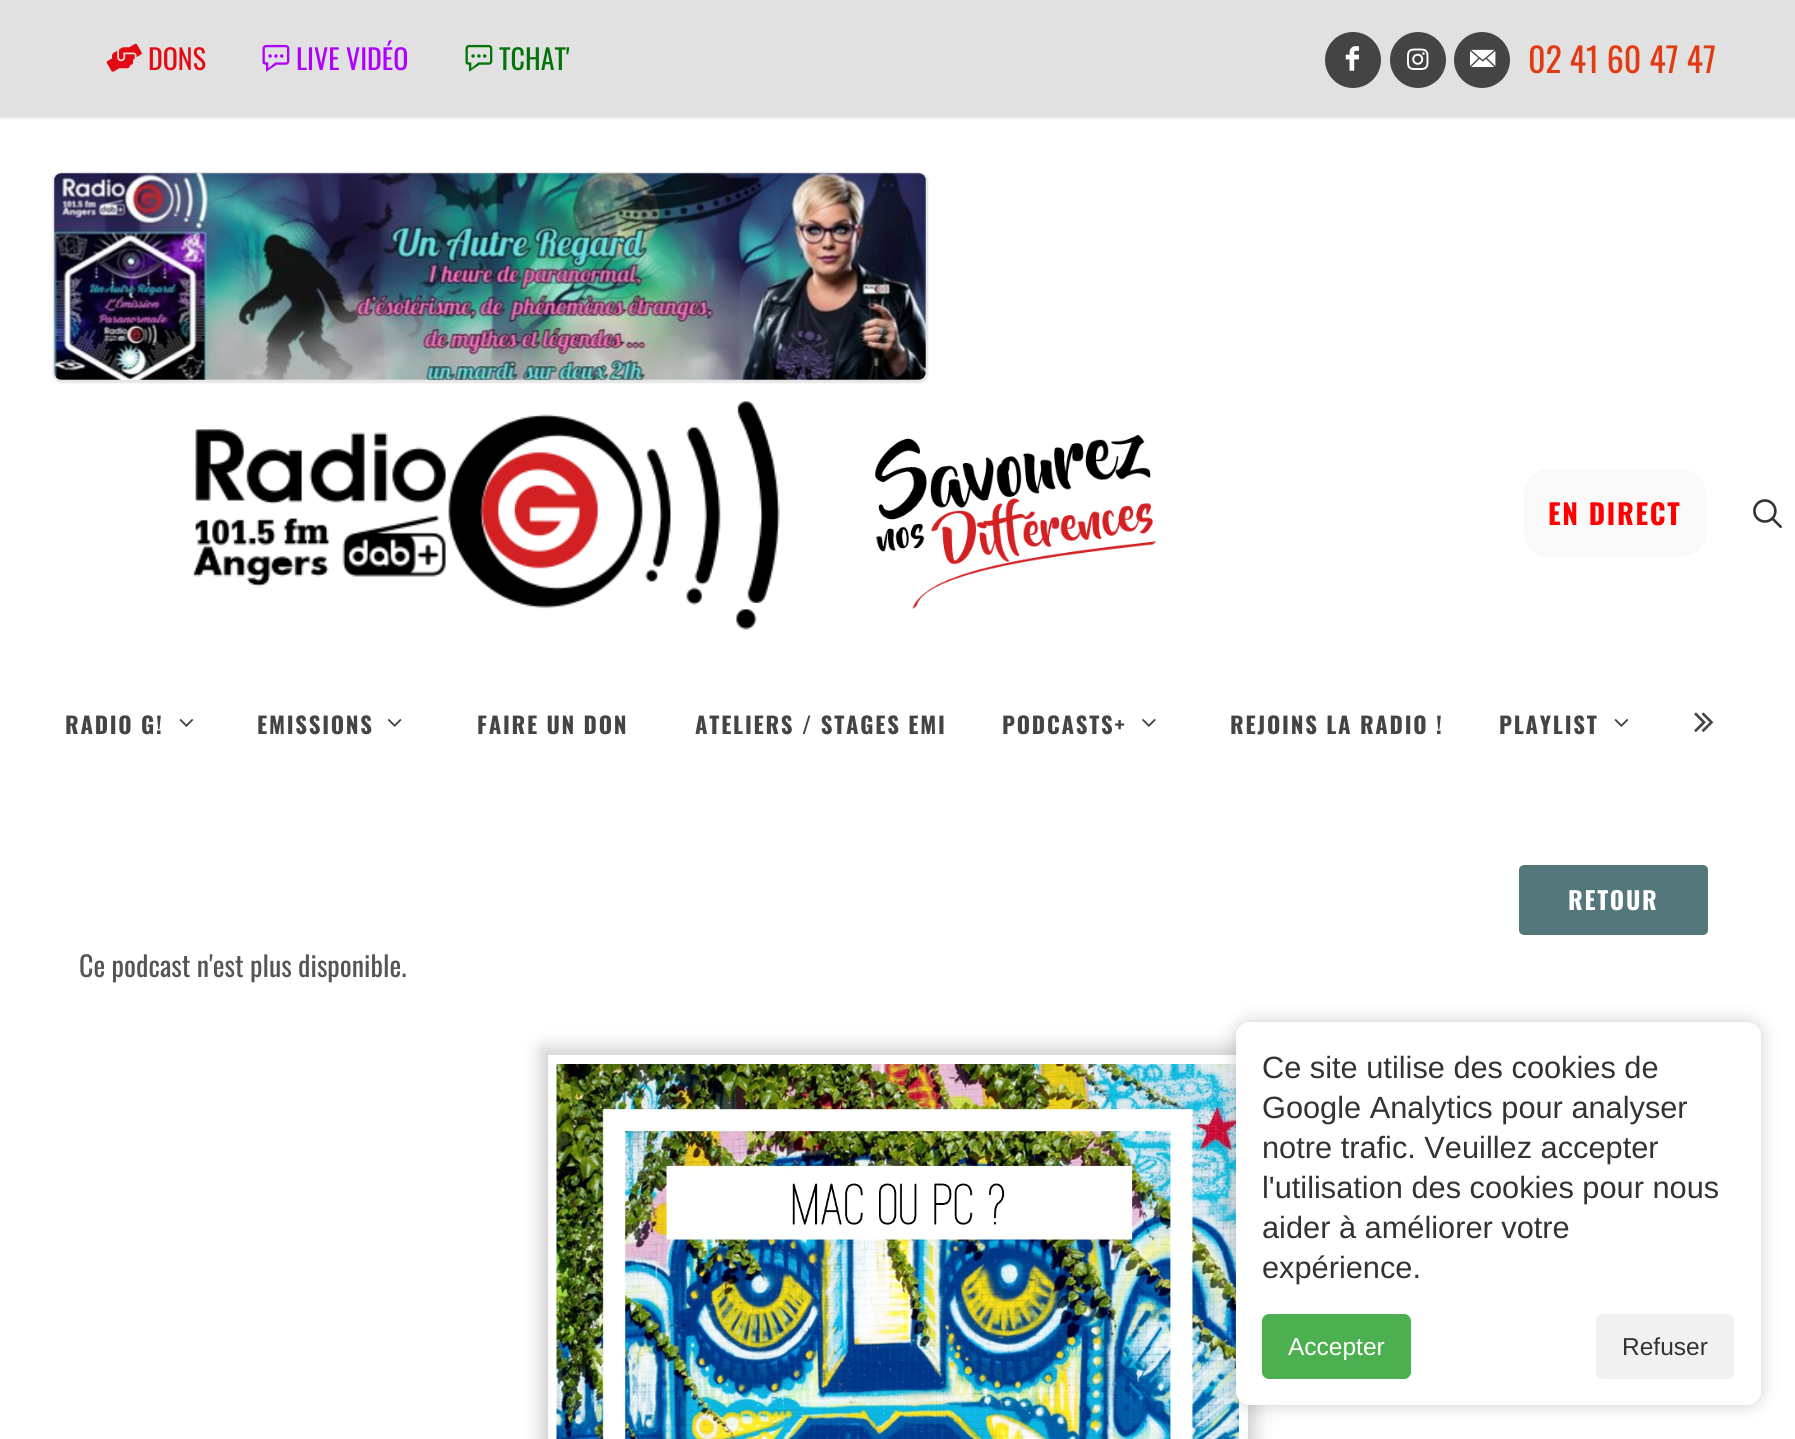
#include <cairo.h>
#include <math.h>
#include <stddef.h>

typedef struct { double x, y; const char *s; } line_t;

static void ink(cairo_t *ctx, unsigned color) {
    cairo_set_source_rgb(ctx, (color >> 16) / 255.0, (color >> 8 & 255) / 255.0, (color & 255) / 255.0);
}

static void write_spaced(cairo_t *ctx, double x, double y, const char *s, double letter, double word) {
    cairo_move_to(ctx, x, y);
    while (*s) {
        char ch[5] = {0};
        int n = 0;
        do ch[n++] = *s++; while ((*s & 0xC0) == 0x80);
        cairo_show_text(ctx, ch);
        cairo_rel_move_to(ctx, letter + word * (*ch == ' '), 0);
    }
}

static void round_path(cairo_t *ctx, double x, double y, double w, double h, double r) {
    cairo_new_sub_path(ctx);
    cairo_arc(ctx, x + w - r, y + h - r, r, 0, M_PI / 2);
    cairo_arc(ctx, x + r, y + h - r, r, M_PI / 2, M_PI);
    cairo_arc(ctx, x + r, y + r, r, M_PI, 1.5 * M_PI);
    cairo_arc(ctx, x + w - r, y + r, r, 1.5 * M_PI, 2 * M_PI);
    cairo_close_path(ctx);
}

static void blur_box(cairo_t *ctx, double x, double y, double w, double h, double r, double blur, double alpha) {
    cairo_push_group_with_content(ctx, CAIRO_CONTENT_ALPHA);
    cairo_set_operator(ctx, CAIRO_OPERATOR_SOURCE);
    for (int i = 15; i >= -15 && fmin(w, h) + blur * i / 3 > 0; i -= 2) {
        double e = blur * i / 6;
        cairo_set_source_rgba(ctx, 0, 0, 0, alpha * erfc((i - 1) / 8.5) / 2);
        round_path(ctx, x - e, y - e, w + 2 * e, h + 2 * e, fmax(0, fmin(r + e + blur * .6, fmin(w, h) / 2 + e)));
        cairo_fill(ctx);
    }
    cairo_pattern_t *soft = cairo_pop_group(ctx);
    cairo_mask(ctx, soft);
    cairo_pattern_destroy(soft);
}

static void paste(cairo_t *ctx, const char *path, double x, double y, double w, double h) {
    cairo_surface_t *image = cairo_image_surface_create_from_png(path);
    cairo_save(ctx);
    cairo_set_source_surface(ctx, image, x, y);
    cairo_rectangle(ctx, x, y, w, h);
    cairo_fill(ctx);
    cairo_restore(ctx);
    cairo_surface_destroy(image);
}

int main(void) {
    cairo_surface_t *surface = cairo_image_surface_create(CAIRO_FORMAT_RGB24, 1795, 1439);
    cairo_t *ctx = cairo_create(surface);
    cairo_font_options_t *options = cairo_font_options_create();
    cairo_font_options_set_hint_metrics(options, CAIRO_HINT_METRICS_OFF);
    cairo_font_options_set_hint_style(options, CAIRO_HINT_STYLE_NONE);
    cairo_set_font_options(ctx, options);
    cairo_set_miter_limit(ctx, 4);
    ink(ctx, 0xFFFFFF);
    cairo_paint(ctx);
    ink(ctx, 0xE1E1E1);
    cairo_rectangle(ctx, 0, 0, 1795, 117);
    cairo_fill(ctx);
    ink(ctx, 0xEEEEEE);
    cairo_rectangle(ctx, 0, 117, 1795, 2);
    cairo_fill(ctx);
    paste(ctx, "media/1.png", 106, 43, 36, 29);
    cairo_select_font_face(ctx, "Oswald", CAIRO_FONT_SLANT_NORMAL, CAIRO_FONT_WEIGHT_NORMAL);
    cairo_set_font_size(ctx, 28);
    ink(ctx, 0xE30B13);
    cairo_move_to(ctx, 148, 70);
    cairo_show_text(ctx, "DONS");
    paste(ctx, "media/2.png", 262, 44, 28, 28);
    ink(ctx, 0xAE00FF);
    cairo_move_to(ctx, 296, 70);
    cairo_show_text(ctx, "LIVE VIDÉO");
    paste(ctx, "media/3.png", 465, 44, 28, 28);
    ink(ctx, 0x007309);
    cairo_move_to(ctx, 499, 70);
    cairo_show_text(ctx, "TCHAT'");
    ink(ctx, 0x444444);
    cairo_new_path(ctx);
    cairo_arc(ctx, 1353, 60, 28, 0, 2 * M_PI);
    cairo_fill(ctx);
    paste(ctx, "media/4.png", 1345, 46, 14, 25);
    cairo_arc(ctx, 1418, 60, 28, 0, 2 * M_PI);
    cairo_fill(ctx);
    paste(ctx, "media/5.png", 1407, 48, 22, 22);
    cairo_arc(ctx, 1482, 60, 28, 0, 2 * M_PI);
    cairo_fill(ctx);
    paste(ctx, "media/6.png", 1470, 49, 26, 18);
    cairo_set_font_size(ctx, 34);
    ink(ctx, 0xE03B13);
    cairo_move_to(ctx, 1528, 73);
    cairo_show_text(ctx, "02 41 60 47 47");
    ink(ctx, 0x000000);
    blur_box(ctx, 53, 173, 875, 210, 9, 1, 0.1);
    ink(ctx, 0xFFFFFF);
    round_path(ctx, 53, 172, 875, 210, 9);
    cairo_fill(ctx);
    round_path(ctx, 54, 173, 873, 208, 8);
    cairo_set_source_rgba(ctx, 0, 0, 0, 0.1);
    cairo_stroke(ctx);
    paste(ctx, "media/7.png", 54, 173, 872, 207);
    paste(ctx, "media/8.png", 192, 401, 588, 229);
    paste(ctx, "media/9.png", 875, 434, 282, 175);
    ink(ctx, 0xF9F9F9);
    round_path(ctx, 1524, 469, 182, 88, 25);
    cairo_fill(ctx);
    cairo_select_font_face(ctx, "Oswald", CAIRO_FONT_SLANT_NORMAL, CAIRO_FONT_WEIGHT_BOLD);
    cairo_set_font_size(ctx, 28);
    ink(ctx, 0xFF0000);
    write_spaced(ctx, 1548, 525, "EN DIRECT", 1.75, 0);
    paste(ctx, "media/10.png", 1753, 499, 29, 30);
    cairo_set_font_size(ctx, 22.75);
    ink(ctx, 0x444444);
    write_spaced(ctx, 65, 734, "RADIO G!", 1.75, 0);
    paste(ctx, "media/11.png", 179, 719, 15, 8);
    write_spaced(ctx, 257, 734, "EMISSIONS", 1.75, 0);
    paste(ctx, "media/12.png", 387, 719, 15, 8);
    {
        static const line_t items[] = {
            {477, 734, "FAIRE UN DON"},
            {695, 734, "ATELIERS / STAGES EMI"},
            {1002, 734, "PODCASTS+"},
        };
        for (size_t i = 0; i < sizeof items / sizeof *items; i++) {
            write_spaced(ctx, items[i].x, items[i].y, items[i].s, 1.75, 0);
        }
    }
    paste(ctx, "media/13.png", 1142, 719, 14, 8);
    write_spaced(ctx, 1230, 734, "REJOINS LA RADIO !", 1.75, 0);
    write_spaced(ctx, 1499, 734, "PLAYLIST", 1.75, 0);
    paste(ctx, "media/11.png", 1614, 719, 15, 8);
    paste(ctx, "media/14.png", 1694, 712, 20, 20);
    ink(ctx, 0x53777A);
    round_path(ctx, 1519, 865, 189, 70, 5);
    cairo_fill(ctx);
    cairo_set_font_size(ctx, 24.5);
    ink(ctx, 0xFFFFFF);
    write_spaced(ctx, 1568, 910, "RETOUR", 1.75, 0);
    cairo_select_font_face(ctx, "Oswald", CAIRO_FONT_SLANT_NORMAL, CAIRO_FONT_WEIGHT_NORMAL);
    cairo_set_font_size(ctx, 28);
    ink(ctx, 0x555555);
    cairo_move_to(ctx, 79, 977);
    cairo_show_text(ctx, "Ce podcast n'est plus disponible.");
    cairo_save(ctx);
    cairo_set_fill_rule(ctx, CAIRO_FILL_RULE_EVEN_ODD);
    cairo_new_path(ctx);
    cairo_move_to(ctx, 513, 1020);
    cairo_line_to(ctx, 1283, 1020);
    cairo_line_to(ctx, 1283, 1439);
    cairo_line_to(ctx, 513, 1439);
    cairo_close_path(ctx);
    cairo_move_to(ctx, 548, 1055);
    cairo_line_to(ctx, 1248, 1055);
    cairo_line_to(ctx, 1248, 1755);
    cairo_line_to(ctx, 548, 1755);
    cairo_close_path(ctx);
    cairo_clip(ctx);
    ink(ctx, 0xBDBDBD);
    blur_box(ctx, 541, 1048, 714, 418, 0, 9, 0.75);
    cairo_restore(ctx);
    paste(ctx, "media/15.png", 556, 1064, 683, 375);
    ink(ctx, 0x000000);
    blur_box(ctx, 1236, 1022, 525, 383, 14, 9, 0.2);
    ink(ctx, 0xFFFFFF);
    round_path(ctx, 1236, 1022, 525, 383, 14);
    cairo_fill(ctx);
    cairo_select_font_face(ctx, "Liberation Sans", CAIRO_FONT_SLANT_NORMAL, CAIRO_FONT_WEIGHT_NORMAL);
    cairo_set_font_size(ctx, 30.75);
    ink(ctx, 0x333333);
    {
        static const line_t items[] = {
            {1262, 1078, "Ce site utilise des cookies de"},
            {1262, 1118, "Google Analytics pour analyser"},
            {1262, 1158, "notre trafic. Veuillez accepter"},
            {1262, 1198, "l'utilisation des cookies pour nous"},
            {1262, 1238, "aider à améliorer votre"},
            {1262, 1278, "expérience."},
        };
        for (size_t i = 0; i < sizeof items / sizeof *items; i++) {
            cairo_move_to(ctx, items[i].x, items[i].y);
            cairo_show_text(ctx, items[i].s);
        }
    }
    ink(ctx, 0x4CAF50);
    round_path(ctx, 1262, 1314, 149, 65, 7);
    cairo_fill(ctx);
    cairo_set_font_size(ctx, 24.5);
    ink(ctx, 0xFFFFFF);
    cairo_move_to(ctx, 1288, 1355);
    cairo_show_text(ctx, "Accepter");
    ink(ctx, 0xF1F1F1);
    round_path(ctx, 1596, 1314, 138, 65, 7);
    cairo_fill(ctx);
    ink(ctx, 0x333333);
    cairo_move_to(ctx, 1622, 1355);
    cairo_show_text(ctx, "Refuser");
    cairo_surface_write_to_png(surface, "image.png");
    cairo_font_options_destroy(options);
    cairo_destroy(ctx);
    cairo_surface_destroy(surface);
    return 0;
}
